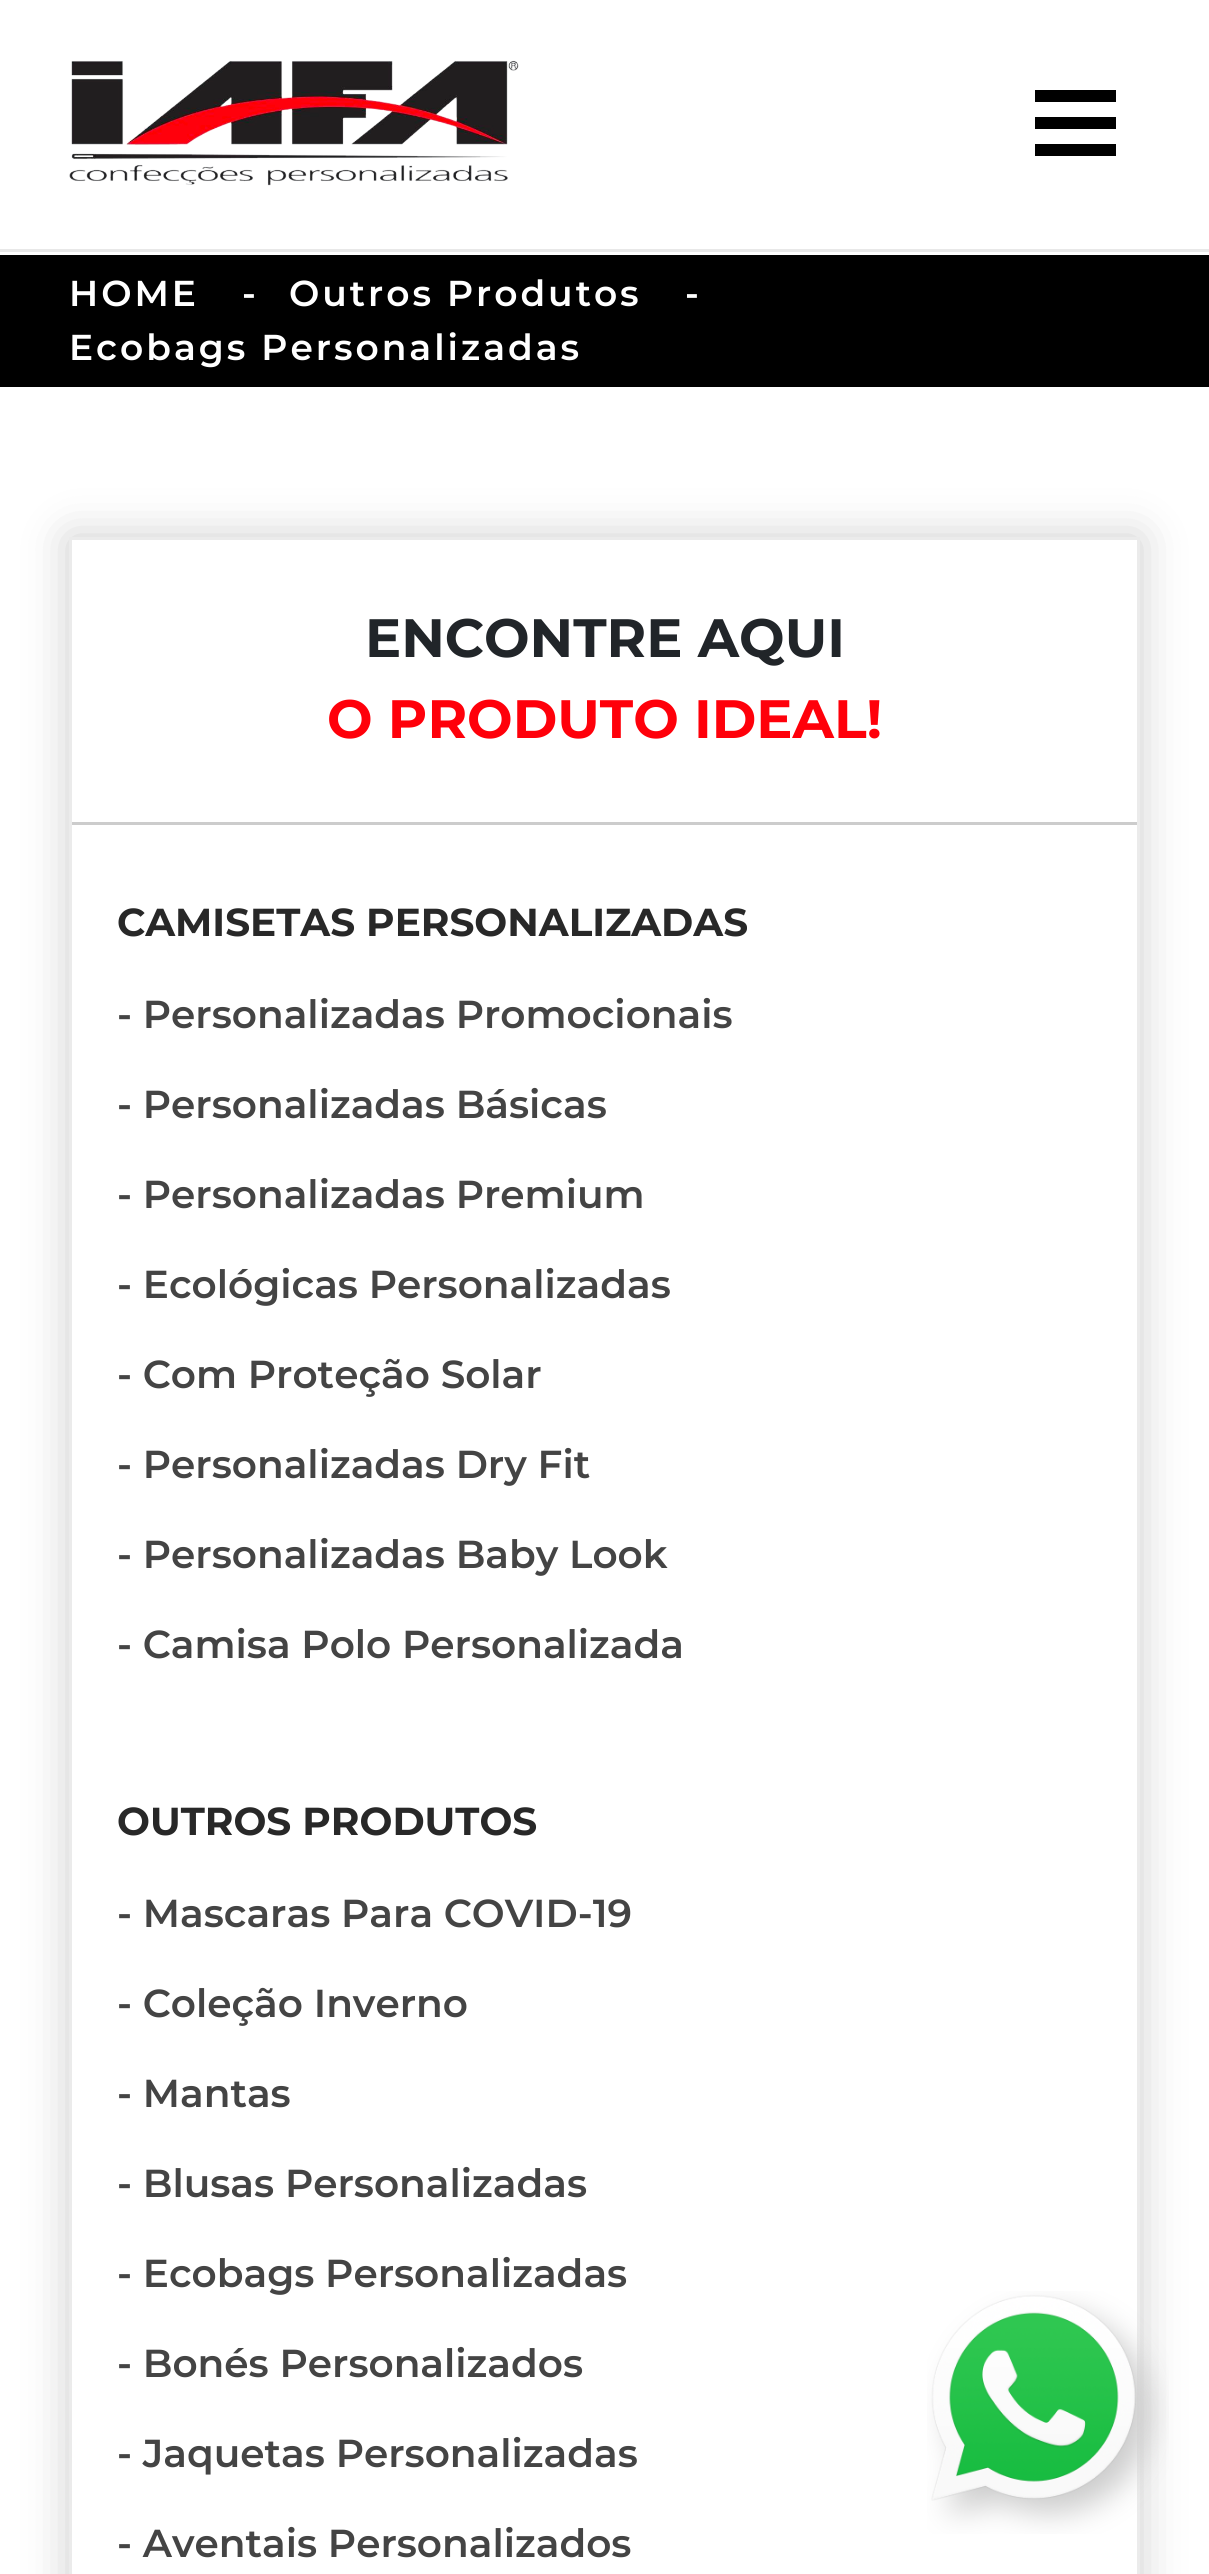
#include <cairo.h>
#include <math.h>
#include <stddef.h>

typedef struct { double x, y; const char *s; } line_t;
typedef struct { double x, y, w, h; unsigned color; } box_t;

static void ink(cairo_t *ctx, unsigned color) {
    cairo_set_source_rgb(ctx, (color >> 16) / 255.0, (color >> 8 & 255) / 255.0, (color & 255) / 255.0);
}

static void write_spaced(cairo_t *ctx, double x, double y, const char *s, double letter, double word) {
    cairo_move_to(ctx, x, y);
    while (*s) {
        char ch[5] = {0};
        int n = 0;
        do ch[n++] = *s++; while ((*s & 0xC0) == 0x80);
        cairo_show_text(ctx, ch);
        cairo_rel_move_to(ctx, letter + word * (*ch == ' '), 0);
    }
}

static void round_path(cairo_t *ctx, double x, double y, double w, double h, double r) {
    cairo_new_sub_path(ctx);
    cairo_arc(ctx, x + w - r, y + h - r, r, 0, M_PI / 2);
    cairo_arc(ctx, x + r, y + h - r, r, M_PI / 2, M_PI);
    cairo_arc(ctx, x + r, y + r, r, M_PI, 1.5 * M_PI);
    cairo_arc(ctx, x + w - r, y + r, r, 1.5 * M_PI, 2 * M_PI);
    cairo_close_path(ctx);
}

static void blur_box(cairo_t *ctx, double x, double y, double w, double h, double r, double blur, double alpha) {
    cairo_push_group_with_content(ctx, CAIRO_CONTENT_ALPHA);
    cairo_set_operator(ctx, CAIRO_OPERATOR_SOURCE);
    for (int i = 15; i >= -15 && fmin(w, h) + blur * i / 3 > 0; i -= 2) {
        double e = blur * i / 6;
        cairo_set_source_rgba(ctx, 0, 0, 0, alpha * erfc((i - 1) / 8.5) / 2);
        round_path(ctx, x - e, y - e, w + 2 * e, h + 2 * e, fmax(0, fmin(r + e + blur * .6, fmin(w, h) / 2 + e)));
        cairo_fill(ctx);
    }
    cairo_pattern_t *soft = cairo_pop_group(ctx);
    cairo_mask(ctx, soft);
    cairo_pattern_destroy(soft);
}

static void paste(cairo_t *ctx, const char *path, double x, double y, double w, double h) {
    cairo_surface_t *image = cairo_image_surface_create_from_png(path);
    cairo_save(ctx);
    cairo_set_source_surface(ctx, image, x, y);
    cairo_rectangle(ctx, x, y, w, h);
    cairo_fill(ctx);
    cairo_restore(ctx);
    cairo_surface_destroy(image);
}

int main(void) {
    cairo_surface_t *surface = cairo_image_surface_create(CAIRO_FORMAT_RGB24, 1209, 2574);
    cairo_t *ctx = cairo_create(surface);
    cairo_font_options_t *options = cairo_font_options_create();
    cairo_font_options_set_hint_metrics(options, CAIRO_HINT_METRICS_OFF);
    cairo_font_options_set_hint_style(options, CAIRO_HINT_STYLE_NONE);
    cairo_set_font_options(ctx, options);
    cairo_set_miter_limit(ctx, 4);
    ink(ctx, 0xFFFFFF);
    cairo_paint(ctx);
    ink(ctx, 0xE8E8E8);
    cairo_rectangle(ctx, 0, 249, 1209, 3);
    cairo_fill(ctx);
    paste(ctx, "media/1.png", 69, 60, 450, 126);
    {
        static const box_t items[] = {
            {1035, 90, 81, 12, 0x000000},
            {1035, 117, 81, 12, 0x000000},
            {1035, 144, 81, 12, 0x000000},
            {0, 255, 1209, 132, 0x000000},
        };
        for (size_t i = 0; i < sizeof items / sizeof *items; i++) {
            ink(ctx, items[i].color);
            cairo_rectangle(ctx, items[i].x, items[i].y, items[i].w, items[i].h);
            cairo_fill(ctx);
        }
    }
    cairo_select_font_face(ctx, "Montserrat SemiBold", CAIRO_FONT_SLANT_NORMAL, CAIRO_FONT_WEIGHT_NORMAL);
    cairo_set_font_size(ctx, 36);
    ink(ctx, 0xFFFFFF);
    {
        static const line_t items[] = {
            {69, 306, "HOME"},
            {242, 306, "-"},
            {289, 306, "Outros Produtos"},
            {685, 306, "-"},
            {69, 360, "Ecobags Personalizadas"},
        };
        for (size_t i = 0; i < sizeof items / sizeof *items; i++) {
            write_spaced(ctx, items[i].x, items[i].y, items[i].s, 3, 0);
        }
    }
    cairo_save(ctx);
    cairo_set_fill_rule(ctx, CAIRO_FILL_RULE_EVEN_ODD);
    cairo_new_path(ctx);
    cairo_move_to(ctx, 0, 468);
    cairo_line_to(ctx, 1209, 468);
    cairo_line_to(ctx, 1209, 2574);
    cairo_line_to(ctx, 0, 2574);
    cairo_close_path(ctx);
    cairo_move_to(ctx, 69, 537);
    cairo_line_to(ctx, 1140, 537);
    cairo_line_to(ctx, 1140, 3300);
    cairo_line_to(ctx, 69, 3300);
    cairo_close_path(ctx);
    cairo_clip(ctx);
    ink(ctx, 0x000000);
    blur_box(ctx, 69, 537, 1071, 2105, 0, 22.5, 0.2);
    cairo_restore(ctx);
    cairo_rectangle(ctx, 70.5, 538.5, 1068, 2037);
    ink(ctx, 0xEBEBEB);
    cairo_set_line_width(ctx, 3);
    cairo_stroke(ctx);
    ink(ctx, 0xCCCCCC);
    cairo_rectangle(ctx, 72, 822, 1065, 3);
    cairo_fill(ctx);
    cairo_select_font_face(ctx, "Montserrat", CAIRO_FONT_SLANT_NORMAL, CAIRO_FONT_WEIGHT_BOLD);
    cairo_set_font_size(ctx, 54);
    ink(ctx, 0x212529);
    cairo_move_to(ctx, 365, 657);
    cairo_show_text(ctx, "ENCONTRE AQUI");
    ink(ctx, 0xFF000A);
    cairo_move_to(ctx, 327, 738);
    cairo_show_text(ctx, "O PRODUTO IDEAL!");
    cairo_set_font_size(ctx, 39);
    ink(ctx, 0x282828);
    cairo_move_to(ctx, 117, 936);
    cairo_show_text(ctx, "CAMISETAS PERSONALIZADAS");
    cairo_select_font_face(ctx, "Montserrat SemiBold", CAIRO_FONT_SLANT_NORMAL, CAIRO_FONT_WEIGHT_NORMAL);
    ink(ctx, 0x444444);
    {
        static const line_t items[] = {
            {117, 1028, "- Personalizadas Promocionais"},
            {117, 1118, "- Personalizadas Básicas"},
            {117, 1208, "- Personalizadas Premium"},
            {117, 1298, "- Ecológicas Personalizadas"},
            {117, 1388, "- Com Proteção Solar"},
            {117, 1478, "- Personalizadas Dry Fit"},
            {117, 1568, "- Personalizadas Baby Look"},
            {117, 1658, "- Camisa Polo Personalizada"},
        };
        for (size_t i = 0; i < sizeof items / sizeof *items; i++) {
            cairo_move_to(ctx, items[i].x, items[i].y);
            cairo_show_text(ctx, items[i].s);
        }
    }
    cairo_select_font_face(ctx, "Montserrat", CAIRO_FONT_SLANT_NORMAL, CAIRO_FONT_WEIGHT_BOLD);
    ink(ctx, 0x282828);
    cairo_move_to(ctx, 117, 1835);
    cairo_show_text(ctx, "OUTROS PRODUTOS");
    cairo_select_font_face(ctx, "Montserrat SemiBold", CAIRO_FONT_SLANT_NORMAL, CAIRO_FONT_WEIGHT_NORMAL);
    ink(ctx, 0x444444);
    {
        static const line_t items[] = {
            {117, 1927, "- Mascaras Para COVID-19"},
            {117, 2017, "- Coleção Inverno"},
            {117, 2107, "- Mantas"},
            {117, 2197, "- Blusas Personalizadas"},
            {117, 2287, "- Ecobags Personalizadas"},
            {117, 2377, "- Bonés Personalizados"},
            {117, 2467, "- Jaquetas Personalizadas"},
            {117, 2557, "- Aventais Personalizados"},
        };
        for (size_t i = 0; i < sizeof items / sizeof *items; i++) {
            cairo_move_to(ctx, items[i].x, items[i].y);
            cairo_show_text(ctx, items[i].s);
        }
    }
    paste(ctx, "media/2.png", 927, 2291, 242, 243);
    cairo_surface_write_to_png(surface, "image.png");
    cairo_font_options_destroy(options);
    cairo_destroy(ctx);
    cairo_surface_destroy(surface);
    return 0;
}
